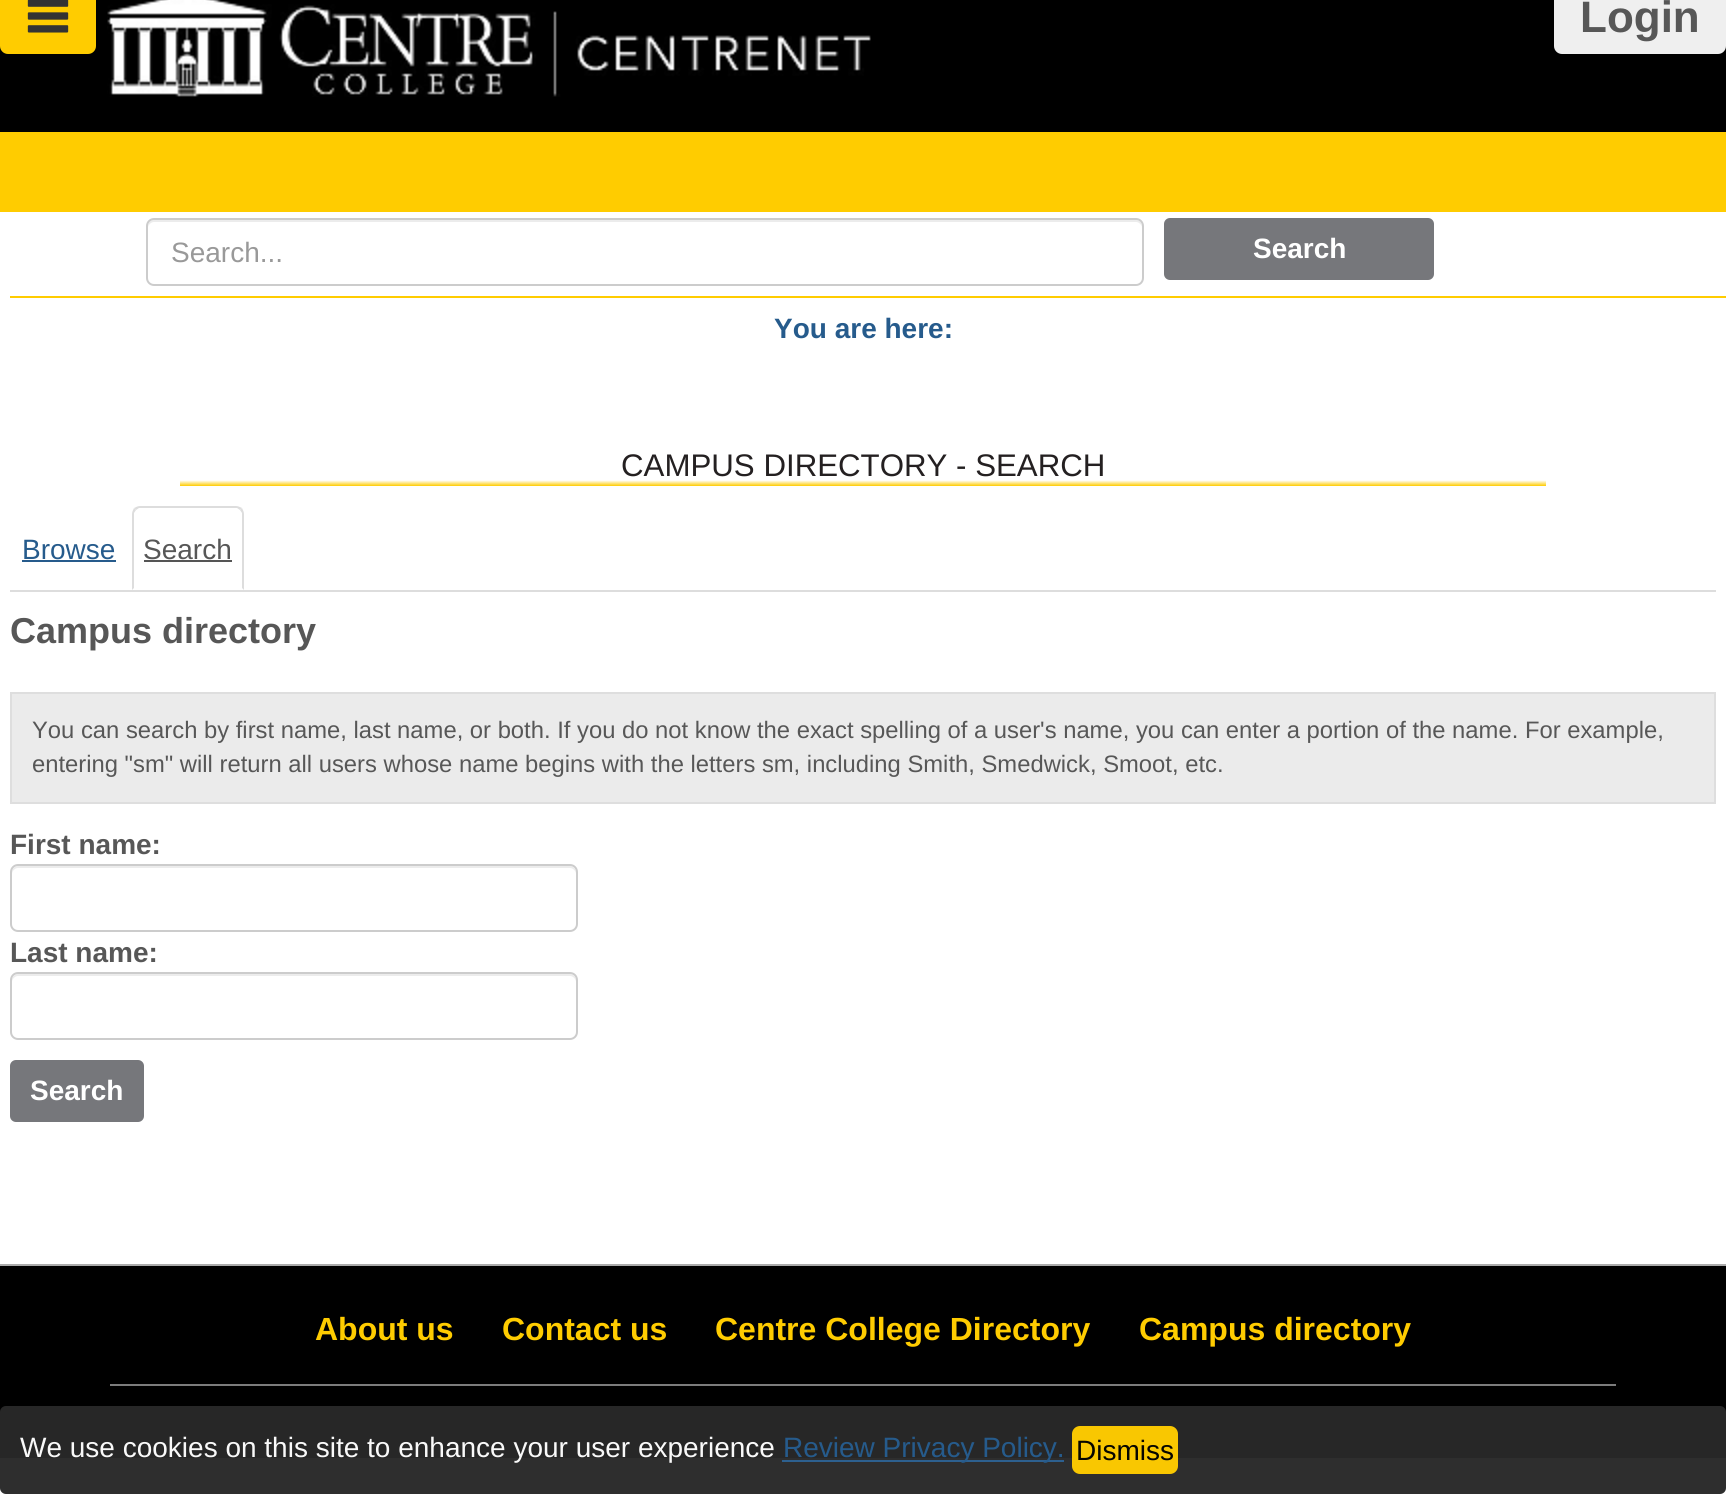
#include <cairo.h>
#include <math.h>
#include <stddef.h>

typedef struct { double x, y; const char *s; } line_t;
typedef struct { double x, y, w, h; unsigned color; } box_t;

static void ink(cairo_t *ctx, unsigned color) {
    cairo_set_source_rgb(ctx, (color >> 16) / 255.0, (color >> 8 & 255) / 255.0, (color & 255) / 255.0);
}

static void round_path(cairo_t *ctx, double x, double y, double w, double h, double r) {
    cairo_new_sub_path(ctx);
    cairo_arc(ctx, x + w - r, y + h - r, r, 0, M_PI / 2);
    cairo_arc(ctx, x + r, y + h - r, r, M_PI / 2, M_PI);
    cairo_arc(ctx, x + r, y + r, r, M_PI, 1.5 * M_PI);
    cairo_arc(ctx, x + w - r, y + r, r, 1.5 * M_PI, 2 * M_PI);
    cairo_close_path(ctx);
}

static void paste(cairo_t *ctx, const char *path, double x, double y, double w, double h) {
    cairo_surface_t *image = cairo_image_surface_create_from_png(path);
    cairo_save(ctx);
    cairo_set_source_surface(ctx, image, x, y);
    cairo_rectangle(ctx, x, y, w, h);
    cairo_fill(ctx);
    cairo_restore(ctx);
    cairo_surface_destroy(image);
}

int main(void) {
    cairo_surface_t *surface = cairo_image_surface_create(CAIRO_FORMAT_RGB24, 1726, 1494);
    cairo_t *ctx = cairo_create(surface);
    cairo_font_options_t *options = cairo_font_options_create();
    cairo_font_options_set_hint_metrics(options, CAIRO_HINT_METRICS_OFF);
    cairo_font_options_set_hint_style(options, CAIRO_HINT_STYLE_NONE);
    cairo_set_font_options(ctx, options);
    cairo_set_miter_limit(ctx, 4);
    cairo_pattern_t *gradient;
    ink(ctx, 0xFFFFFF);
    cairo_paint(ctx);
    ink(ctx, 0x000000);
    cairo_rectangle(ctx, 0, 0, 1726, 132);
    cairo_fill(ctx);
    ink(ctx, 0xFFCC00);
    round_path(ctx, 0, -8, 96, 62, 8);
    cairo_fill(ctx);
    paste(ctx, "media/1.png", 27, 0, 42, 33);
    paste(ctx, "media/2.png", 107, 0, 764, 97);
    ink(ctx, 0xEFEFEF);
    round_path(ctx, 1554, -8, 172, 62, 8);
    cairo_fill(ctx);
    cairo_select_font_face(ctx, "Liberation Sans", CAIRO_FONT_SLANT_NORMAL, CAIRO_FONT_WEIGHT_BOLD);
    cairo_set_font_size(ctx, 44);
    ink(ctx, 0x575757);
    cairo_move_to(ctx, 1580, 32);
    cairo_show_text(ctx, "Login");
    ink(ctx, 0xFFCC00);
    cairo_rectangle(ctx, 0, 132, 1726, 80);
    cairo_fill(ctx);
    ink(ctx, 0xECECEC);
    cairo_new_path(ctx);
    cairo_move_to(ctx, 154, 222);
    cairo_line_to(ctx, 1136, 222);
    cairo_curve_to(ctx, 1139, 222, 1142, 225, 1142, 228);
    cairo_curve_to(ctx, 1142, 224, 1141, 220, 1136, 220);
    cairo_line_to(ctx, 154, 220);
    cairo_curve_to(ctx, 149, 220, 148, 224, 148, 228);
    cairo_curve_to(ctx, 148, 225, 151, 222, 154, 222);
    cairo_close_path(ctx);
    cairo_fill(ctx);
    round_path(ctx, 147, 219, 996, 66, 7);
    ink(ctx, 0xCCCCCC);
    cairo_stroke(ctx);
    cairo_select_font_face(ctx, "Liberation Sans", CAIRO_FONT_SLANT_NORMAL, CAIRO_FONT_WEIGHT_NORMAL);
    cairo_set_font_size(ctx, 28);
    ink(ctx, 0x999999);
    cairo_move_to(ctx, 171, 262);
    cairo_show_text(ctx, "Search...");
    ink(ctx, 0x76777B);
    round_path(ctx, 1164, 218, 270, 62, 6);
    cairo_fill(ctx);
    cairo_select_font_face(ctx, "Liberation Sans", CAIRO_FONT_SLANT_NORMAL, CAIRO_FONT_WEIGHT_BOLD);
    ink(ctx, 0xFFFFFF);
    cairo_move_to(ctx, 1253, 258);
    cairo_show_text(ctx, "Search");
    ink(ctx, 0xFFCC00);
    cairo_rectangle(ctx, 10, 296, 1716, 2);
    cairo_fill(ctx);
    ink(ctx, 0x265B8C);
    cairo_move_to(ctx, 774, 338);
    cairo_show_text(ctx, "You are here:");
    gradient = cairo_pattern_create_linear(863, 486, 863, 448);
    cairo_pattern_add_color_stop_rgba(gradient, 0, 1, 0.8, 0, 1);
    cairo_pattern_add_color_stop_rgba(gradient, 0.15, 1, 1, 1, 1);
    cairo_set_source(ctx, gradient);
    cairo_pattern_destroy(gradient);
    cairo_rectangle(ctx, 180, 480, 1366, 6);
    cairo_fill(ctx);
    cairo_select_font_face(ctx, "Liberation Sans", CAIRO_FONT_SLANT_NORMAL, CAIRO_FONT_WEIGHT_NORMAL);
    cairo_set_font_size(ctx, 31.25);
    ink(ctx, 0x242021);
    cairo_move_to(ctx, 621, 476);
    cairo_show_text(ctx, "CAMPUS DIRECTORY - SEARCH");
    ink(ctx, 0xDDDDDD);
    cairo_rectangle(ctx, 10, 590, 1706, 2);
    cairo_fill(ctx);
    cairo_set_font_size(ctx, 28);
    ink(ctx, 0x265B8C);
    cairo_move_to(ctx, 22, 559);
    cairo_show_text(ctx, "Browse");
    cairo_rectangle(ctx, 22, 560, 94, 2);
    cairo_fill(ctx);
    ink(ctx, 0xDDDDDD);
    cairo_new_path(ctx);
    cairo_move_to(ctx, 140, 506);
    cairo_curve_to(ctx, 138, 506, 136, 507, 134, 508);
    cairo_line_to(ctx, 136, 510);
    cairo_line_to(ctx, 139, 508);
    cairo_line_to(ctx, 237, 508);
    cairo_line_to(ctx, 240, 510);
    cairo_line_to(ctx, 242, 508);
    cairo_curve_to(ctx, 240, 507, 238, 506, 236, 506);
    cairo_close_path(ctx);
    cairo_fill(ctx);
    cairo_new_path(ctx);
    cairo_move_to(ctx, 244, 590);
    cairo_line_to(ctx, 244, 514);
    cairo_curve_to(ctx, 244, 512, 243, 510, 242, 508);
    cairo_line_to(ctx, 240, 510);
    cairo_line_to(ctx, 242, 513);
    cairo_line_to(ctx, 242, 588);
    cairo_close_path(ctx);
    cairo_fill(ctx);
    cairo_new_path(ctx);
    cairo_move_to(ctx, 132, 590);
    cairo_line_to(ctx, 134, 588);
    cairo_line_to(ctx, 134, 513);
    cairo_line_to(ctx, 136, 510);
    cairo_line_to(ctx, 134, 508);
    cairo_curve_to(ctx, 133, 510, 132, 512, 132, 514);
    cairo_close_path(ctx);
    cairo_fill(ctx);
    ink(ctx, 0x575757);
    cairo_move_to(ctx, 143, 559);
    cairo_show_text(ctx, "Search");
    ink(ctx, 0x555555);
    cairo_rectangle(ctx, 144, 560, 88, 2);
    cairo_fill(ctx);
    cairo_select_font_face(ctx, "Liberation Sans", CAIRO_FONT_SLANT_NORMAL, CAIRO_FONT_WEIGHT_BOLD);
    cairo_set_font_size(ctx, 36);
    ink(ctx, 0x575757);
    cairo_move_to(ctx, 10, 643);
    cairo_show_text(ctx, "Campus directory");
    ink(ctx, 0xEBEBEB);
    cairo_rectangle(ctx, 11, 693, 1704, 110);
    cairo_fill_preserve(ctx);
    ink(ctx, 0xDEDEDE);
    cairo_stroke(ctx);
    cairo_select_font_face(ctx, "Liberation Sans", CAIRO_FONT_SLANT_NORMAL, CAIRO_FONT_WEIGHT_NORMAL);
    cairo_set_font_size(ctx, 23.8);
    ink(ctx, 0x575757);
    cairo_move_to(ctx, 32, 738);
    cairo_show_text(ctx, "You can search by first name, last name, or both. If you do not know the exact spelling of a user's name, you can enter a portion of the name. For example,");
    cairo_move_to(ctx, 32, 772);
    cairo_show_text(ctx, "entering \"sm\" will return all users whose name begins with the letters sm, including Smith, Smedwick, Smoot, etc.");
    cairo_select_font_face(ctx, "Liberation Sans", CAIRO_FONT_SLANT_NORMAL, CAIRO_FONT_WEIGHT_BOLD);
    cairo_set_font_size(ctx, 28);
    cairo_move_to(ctx, 10, 854);
    cairo_show_text(ctx, "First name:");
    ink(ctx, 0xECECEC);
    cairo_new_path(ctx);
    cairo_move_to(ctx, 18, 868);
    cairo_line_to(ctx, 570, 868);
    cairo_curve_to(ctx, 573, 868, 576, 871, 576, 874);
    cairo_line_to(ctx, 576, 872);
    cairo_curve_to(ctx, 576, 869, 573, 866, 570, 866);
    cairo_line_to(ctx, 18, 866);
    cairo_curve_to(ctx, 15, 866, 12, 869, 12, 872);
    cairo_line_to(ctx, 12, 874);
    cairo_curve_to(ctx, 12, 871, 15, 868, 18, 868);
    cairo_close_path(ctx);
    cairo_fill(ctx);
    round_path(ctx, 11, 865, 566, 66, 7);
    ink(ctx, 0xCCCCCC);
    cairo_stroke(ctx);
    ink(ctx, 0x575757);
    cairo_move_to(ctx, 10, 962);
    cairo_show_text(ctx, "Last name:");
    ink(ctx, 0xECECEC);
    cairo_new_path(ctx);
    cairo_move_to(ctx, 18, 976);
    cairo_line_to(ctx, 570, 976);
    cairo_curve_to(ctx, 573, 976, 576, 979, 576, 982);
    cairo_line_to(ctx, 576, 980);
    cairo_curve_to(ctx, 576, 977, 573, 974, 570, 974);
    cairo_line_to(ctx, 18, 974);
    cairo_curve_to(ctx, 15, 974, 12, 977, 12, 980);
    cairo_line_to(ctx, 12, 982);
    cairo_curve_to(ctx, 12, 979, 15, 976, 18, 976);
    cairo_close_path(ctx);
    cairo_fill(ctx);
    round_path(ctx, 11, 973, 566, 66, 7);
    ink(ctx, 0xCCCCCC);
    cairo_stroke(ctx);
    ink(ctx, 0x76777B);
    round_path(ctx, 10, 1060, 134, 62, 6);
    cairo_fill(ctx);
    ink(ctx, 0xFFFFFF);
    cairo_move_to(ctx, 30, 1100);
    cairo_show_text(ctx, "Search");
    {
        static const box_t items[] = {
            {0, 1266, 1726, 192, 0x000000},
            {0, 1264, 1726, 2, 0xABABAB},
            {110, 1384, 1506, 2, 0x7C7C7C},
        };
        for (size_t i = 0; i < sizeof items / sizeof *items; i++) {
            ink(ctx, items[i].color);
            cairo_rectangle(ctx, items[i].x, items[i].y, items[i].w, items[i].h);
            cairo_fill(ctx);
        }
    }
    cairo_set_font_size(ctx, 32);
    ink(ctx, 0xFFCC00);
    {
        static const line_t items[] = {
            {315, 1340, "About us"},
            {502, 1340, "Contact us"},
            {715, 1340, "Centre College Directory"},
            {1139, 1340, "Campus directory"},
        };
        for (size_t i = 0; i < sizeof items / sizeof *items; i++) {
            cairo_move_to(ctx, items[i].x, items[i].y);
            cairo_show_text(ctx, items[i].s);
        }
    }
    cairo_set_source_rgba(ctx, 0.161, 0.161, 0.161, 0.97);
    round_path(ctx, 0, 1406, 1726, 88, 6);
    cairo_fill(ctx);
    cairo_select_font_face(ctx, "Liberation Sans", CAIRO_FONT_SLANT_NORMAL, CAIRO_FONT_WEIGHT_NORMAL);
    cairo_set_font_size(ctx, 28);
    ink(ctx, 0xF9F9F9);
    cairo_move_to(ctx, 20, 1457);
    cairo_show_text(ctx, "We use cookies on this site to enhance your user experience");
    ink(ctx, 0x2D608F);
    cairo_rectangle(ctx, 782, 1460, 282, 2);
    cairo_fill(ctx);
    ink(ctx, 0x265B8C);
    cairo_move_to(ctx, 783, 1457);
    cairo_show_text(ctx, "Review Privacy Policy.");
    cairo_set_source_rgba(ctx, 1, 0.8, 0, 0.97);
    round_path(ctx, 1072, 1426, 106, 48, 8);
    cairo_fill(ctx);
    ink(ctx, 0x070600);
    cairo_move_to(ctx, 1076, 1460);
    cairo_show_text(ctx, "Dismiss");
    cairo_surface_write_to_png(surface, "image.png");
    cairo_font_options_destroy(options);
    cairo_destroy(ctx);
    cairo_surface_destroy(surface);
    return 0;
}
